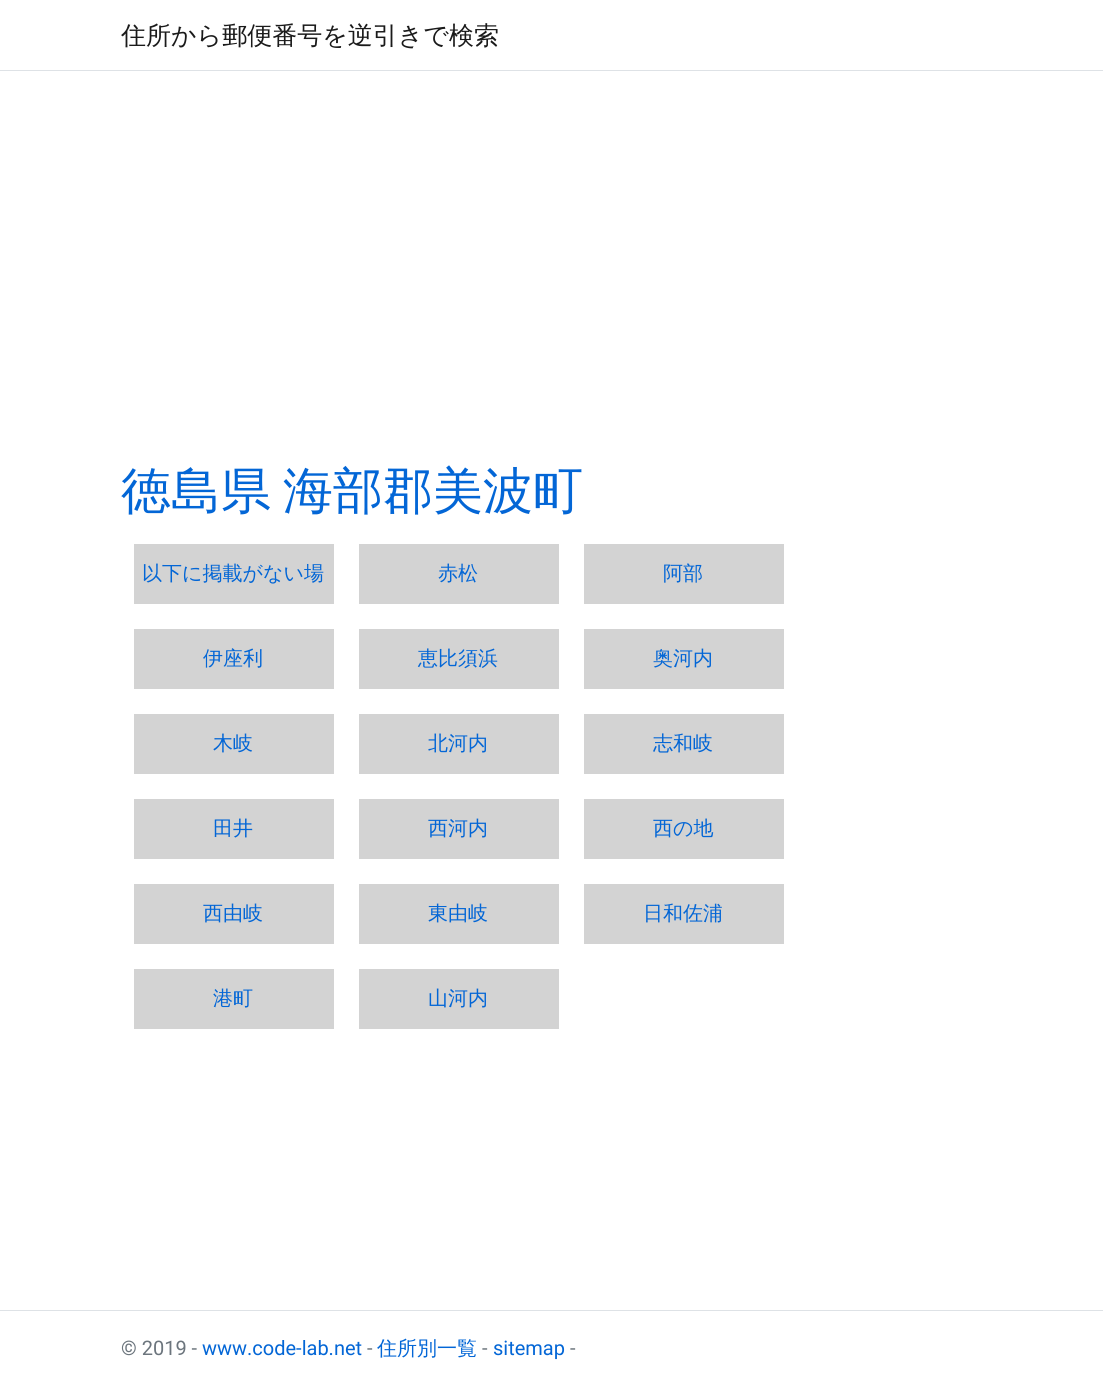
#include <cairo.h>
#include <math.h>
#include <stddef.h>


static void ink(cairo_t *ctx, unsigned color) {
    cairo_set_source_rgb(ctx, (color >> 16) / 255.0, (color >> 8 & 255) / 255.0, (color & 255) / 255.0);
}

int main(void) {
    cairo_surface_t *surface = cairo_image_surface_create(CAIRO_FORMAT_RGB24, 1103, 1386);
    cairo_t *ctx = cairo_create(surface);
    cairo_font_options_t *options = cairo_font_options_create();
    cairo_font_options_set_hint_metrics(options, CAIRO_HINT_METRICS_OFF);
    cairo_font_options_set_hint_style(options, CAIRO_HINT_STYLE_NONE);
    cairo_set_font_options(ctx, options);
    cairo_set_miter_limit(ctx, 4);
    ink(ctx, 0xFFFFFF);
    cairo_paint(ctx);
    ink(ctx, 0xDEE2E6);
    cairo_rectangle(ctx, 0, 70, 1103, 1);
    cairo_fill(ctx);
    cairo_select_font_face(ctx, "WenQuanYi Zen Hei Medium", CAIRO_FONT_SLANT_NORMAL, CAIRO_FONT_WEIGHT_NORMAL);
    cairo_set_font_size(ctx, 25);
    ink(ctx, 0x1A1A1A);
    cairo_move_to(ctx, 121, 44);
    cairo_show_text(ctx, "住所から郵便番号を逆引きで検索");
    cairo_set_font_size(ctx, 50);
    ink(ctx, 0x0366D6);
    cairo_move_to(ctx, 121, 508);
    cairo_show_text(ctx, "徳島県");
    cairo_move_to(ctx, 283, 508);
    cairo_show_text(ctx, "海部郡美波町");
    ink(ctx, 0xD3D3D3);
    cairo_rectangle(ctx, 134, 544, 200, 60);
    cairo_fill(ctx);
    cairo_set_font_size(ctx, 20);
    ink(ctx, 0x0366D6);
    cairo_move_to(ctx, 142, 580);
    cairo_show_text(ctx, "以下に掲載がない場");
    ink(ctx, 0xD3D3D3);
    cairo_rectangle(ctx, 359, 544, 200, 60);
    cairo_fill(ctx);
    ink(ctx, 0x0366D6);
    cairo_move_to(ctx, 438, 580);
    cairo_show_text(ctx, "赤松");
    ink(ctx, 0xD3D3D3);
    cairo_rectangle(ctx, 584, 544, 200, 60);
    cairo_fill(ctx);
    ink(ctx, 0x0366D6);
    cairo_move_to(ctx, 663, 580);
    cairo_show_text(ctx, "阿部");
    ink(ctx, 0xD3D3D3);
    cairo_rectangle(ctx, 134, 629, 200, 60);
    cairo_fill(ctx);
    ink(ctx, 0x0366D6);
    cairo_move_to(ctx, 203, 665);
    cairo_show_text(ctx, "伊座利");
    ink(ctx, 0xD3D3D3);
    cairo_rectangle(ctx, 359, 629, 200, 60);
    cairo_fill(ctx);
    ink(ctx, 0x0366D6);
    cairo_move_to(ctx, 418, 665);
    cairo_show_text(ctx, "恵比須浜");
    ink(ctx, 0xD3D3D3);
    cairo_rectangle(ctx, 584, 629, 200, 60);
    cairo_fill(ctx);
    ink(ctx, 0x0366D6);
    cairo_move_to(ctx, 653, 665);
    cairo_show_text(ctx, "奥河内");
    ink(ctx, 0xD3D3D3);
    cairo_rectangle(ctx, 134, 714, 200, 60);
    cairo_fill(ctx);
    ink(ctx, 0x0366D6);
    cairo_move_to(ctx, 213, 750);
    cairo_show_text(ctx, "木岐");
    ink(ctx, 0xD3D3D3);
    cairo_rectangle(ctx, 359, 714, 200, 60);
    cairo_fill(ctx);
    ink(ctx, 0x0366D6);
    cairo_move_to(ctx, 428, 750);
    cairo_show_text(ctx, "北河内");
    ink(ctx, 0xD3D3D3);
    cairo_rectangle(ctx, 584, 714, 200, 60);
    cairo_fill(ctx);
    ink(ctx, 0x0366D6);
    cairo_move_to(ctx, 653, 750);
    cairo_show_text(ctx, "志和岐");
    ink(ctx, 0xD3D3D3);
    cairo_rectangle(ctx, 134, 799, 200, 60);
    cairo_fill(ctx);
    ink(ctx, 0x0366D6);
    cairo_move_to(ctx, 213, 835);
    cairo_show_text(ctx, "田井");
    ink(ctx, 0xD3D3D3);
    cairo_rectangle(ctx, 359, 799, 200, 60);
    cairo_fill(ctx);
    ink(ctx, 0x0366D6);
    cairo_move_to(ctx, 428, 835);
    cairo_show_text(ctx, "西河内");
    ink(ctx, 0xD3D3D3);
    cairo_rectangle(ctx, 584, 799, 200, 60);
    cairo_fill(ctx);
    ink(ctx, 0x0366D6);
    cairo_move_to(ctx, 653, 835);
    cairo_show_text(ctx, "西の地");
    ink(ctx, 0xD3D3D3);
    cairo_rectangle(ctx, 134, 884, 200, 60);
    cairo_fill(ctx);
    ink(ctx, 0x0366D6);
    cairo_move_to(ctx, 203, 920);
    cairo_show_text(ctx, "西由岐");
    ink(ctx, 0xD3D3D3);
    cairo_rectangle(ctx, 359, 884, 200, 60);
    cairo_fill(ctx);
    ink(ctx, 0x0366D6);
    cairo_move_to(ctx, 428, 920);
    cairo_show_text(ctx, "東由岐");
    ink(ctx, 0xD3D3D3);
    cairo_rectangle(ctx, 584, 884, 200, 60);
    cairo_fill(ctx);
    ink(ctx, 0x0366D6);
    cairo_move_to(ctx, 643, 920);
    cairo_show_text(ctx, "日和佐浦");
    ink(ctx, 0xD3D3D3);
    cairo_rectangle(ctx, 134, 969, 200, 60);
    cairo_fill(ctx);
    ink(ctx, 0x0366D6);
    cairo_move_to(ctx, 213, 1005);
    cairo_show_text(ctx, "港町");
    ink(ctx, 0xD3D3D3);
    cairo_rectangle(ctx, 359, 969, 200, 60);
    cairo_fill(ctx);
    ink(ctx, 0x0366D6);
    cairo_move_to(ctx, 428, 1005);
    cairo_show_text(ctx, "山河内");
    ink(ctx, 0xDEE2E6);
    cairo_rectangle(ctx, 0, 1310, 1103, 1);
    cairo_fill(ctx);
    cairo_select_font_face(ctx, "Roboto", CAIRO_FONT_SLANT_NORMAL, CAIRO_FONT_WEIGHT_NORMAL);
    ink(ctx, 0x6C757D);
    cairo_move_to(ctx, 121, 1355);
    cairo_show_text(ctx, "© 2019 -");
    ink(ctx, 0x0366D6);
    cairo_move_to(ctx, 202, 1355);
    cairo_show_text(ctx, "www.code-lab.net");
    ink(ctx, 0x6C757D);
    cairo_move_to(ctx, 367, 1355);
    cairo_show_text(ctx, "-");
    cairo_select_font_face(ctx, "WenQuanYi Zen Hei Medium", CAIRO_FONT_SLANT_NORMAL, CAIRO_FONT_WEIGHT_NORMAL);
    ink(ctx, 0x0366D6);
    cairo_move_to(ctx, 377, 1355);
    cairo_show_text(ctx, "住所別一覧");
    cairo_select_font_face(ctx, "Roboto", CAIRO_FONT_SLANT_NORMAL, CAIRO_FONT_WEIGHT_NORMAL);
    ink(ctx, 0x6C757D);
    cairo_move_to(ctx, 482, 1355);
    cairo_show_text(ctx, "-");
    ink(ctx, 0x0366D6);
    cairo_move_to(ctx, 493, 1355);
    cairo_show_text(ctx, "sitemap");
    ink(ctx, 0x6C757D);
    cairo_move_to(ctx, 570, 1355);
    cairo_show_text(ctx, "-");
    cairo_surface_write_to_png(surface, "image.png");
    cairo_font_options_destroy(options);
    cairo_destroy(ctx);
    cairo_surface_destroy(surface);
    return 0;
}
